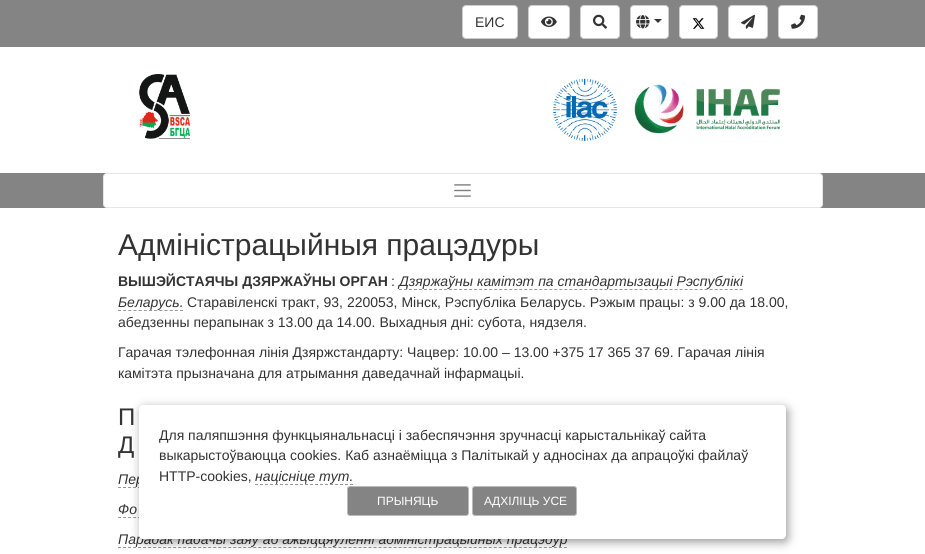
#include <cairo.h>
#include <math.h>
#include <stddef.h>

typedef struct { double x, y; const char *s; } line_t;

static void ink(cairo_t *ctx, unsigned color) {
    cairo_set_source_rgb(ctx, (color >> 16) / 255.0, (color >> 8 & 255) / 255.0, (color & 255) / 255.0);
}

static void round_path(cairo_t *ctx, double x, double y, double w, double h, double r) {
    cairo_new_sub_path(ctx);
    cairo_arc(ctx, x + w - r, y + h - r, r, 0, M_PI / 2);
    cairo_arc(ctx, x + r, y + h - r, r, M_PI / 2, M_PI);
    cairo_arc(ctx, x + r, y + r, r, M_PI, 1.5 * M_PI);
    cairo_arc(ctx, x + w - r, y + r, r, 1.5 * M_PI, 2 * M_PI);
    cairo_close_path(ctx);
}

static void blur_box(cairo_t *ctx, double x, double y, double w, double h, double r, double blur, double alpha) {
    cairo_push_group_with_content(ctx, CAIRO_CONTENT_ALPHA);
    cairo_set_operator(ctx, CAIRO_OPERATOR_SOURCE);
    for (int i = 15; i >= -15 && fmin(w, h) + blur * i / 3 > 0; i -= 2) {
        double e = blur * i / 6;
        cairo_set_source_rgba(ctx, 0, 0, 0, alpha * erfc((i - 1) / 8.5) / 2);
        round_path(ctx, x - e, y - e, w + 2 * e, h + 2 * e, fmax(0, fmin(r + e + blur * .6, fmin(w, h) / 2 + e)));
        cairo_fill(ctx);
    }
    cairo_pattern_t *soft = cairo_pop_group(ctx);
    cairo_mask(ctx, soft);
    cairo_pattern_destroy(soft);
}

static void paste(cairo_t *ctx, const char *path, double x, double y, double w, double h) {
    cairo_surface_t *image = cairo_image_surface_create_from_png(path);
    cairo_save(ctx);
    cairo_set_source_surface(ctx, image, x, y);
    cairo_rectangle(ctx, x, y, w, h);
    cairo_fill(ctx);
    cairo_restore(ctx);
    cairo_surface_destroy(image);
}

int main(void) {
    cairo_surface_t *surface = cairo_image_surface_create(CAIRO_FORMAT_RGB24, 925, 554);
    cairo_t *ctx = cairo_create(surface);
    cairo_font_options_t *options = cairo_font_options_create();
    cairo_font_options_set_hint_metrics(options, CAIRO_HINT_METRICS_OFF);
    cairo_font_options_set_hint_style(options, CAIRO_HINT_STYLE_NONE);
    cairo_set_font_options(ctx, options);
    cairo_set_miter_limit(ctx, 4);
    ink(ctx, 0xFFFFFF);
    cairo_paint(ctx);
    ink(ctx, 0x848484);
    cairo_rectangle(ctx, 0, 0, 925, 47);
    cairo_fill(ctx);
    ink(ctx, 0xFFFFFF);
    round_path(ctx, 462.5, 5.5, 55, 33, 3.5);
    cairo_fill_preserve(ctx);
    ink(ctx, 0xCCCCCC);
    cairo_set_line_width(ctx, 1);
    cairo_stroke(ctx);
    cairo_select_font_face(ctx, "Liberation Sans", CAIRO_FONT_SLANT_NORMAL, CAIRO_FONT_WEIGHT_NORMAL);
    cairo_set_font_size(ctx, 14);
    ink(ctx, 0x333333);
    cairo_move_to(ctx, 475, 27);
    cairo_show_text(ctx, "ЕИС");
    ink(ctx, 0xFFFFFF);
    round_path(ctx, 528.5, 5.5, 41, 33, 3.5);
    cairo_fill_preserve(ctx);
    ink(ctx, 0xCCCCCC);
    cairo_stroke(ctx);
    paste(ctx, "media/1.png", 541, 16, 16, 11);
    ink(ctx, 0xFFFFFF);
    round_path(ctx, 580.5, 5.5, 39, 33, 3.5);
    cairo_fill_preserve(ctx);
    ink(ctx, 0xCCCCCC);
    cairo_stroke(ctx);
    paste(ctx, "media/2.png", 593, 14, 14, 15);
    ink(ctx, 0xFFFFFF);
    round_path(ctx, 630.5, 5.5, 38, 33, 3.5);
    cairo_fill_preserve(ctx);
    ink(ctx, 0xCCCCCC);
    cairo_stroke(ctx);
    paste(ctx, "media/3.png", 636, 15, 14, 14);
    ink(ctx, 0x333333);
    cairo_new_path(ctx);
    cairo_move_to(ctx, 654, 19);
    cairo_line_to(ctx, 662, 19);
    cairo_line_to(ctx, 658, 23);
    cairo_close_path(ctx);
    cairo_fill(ctx);
    ink(ctx, 0xFFFFFF);
    round_path(ctx, 679.5, 5.5, 38, 33, 3.5);
    cairo_fill_preserve(ctx);
    ink(ctx, 0xCCCCCC);
    cairo_stroke(ctx);
    paste(ctx, "media/4.png", 692, 18, 13, 11);
    ink(ctx, 0xFFFFFF);
    round_path(ctx, 728.5, 5.5, 39, 33, 3.5);
    cairo_fill_preserve(ctx);
    ink(ctx, 0xCCCCCC);
    cairo_stroke(ctx);
    paste(ctx, "media/5.png", 741, 14, 14, 15);
    ink(ctx, 0xFFFFFF);
    round_path(ctx, 778.5, 5.5, 39, 33, 3.5);
    cairo_fill_preserve(ctx);
    ink(ctx, 0xCCCCCC);
    cairo_stroke(ctx);
    paste(ctx, "media/6.png", 791, 14, 14, 15);
    paste(ctx, "media/7.png", 138, 74, 52, 65);
    paste(ctx, "media/8.png", 553, 78, 65, 64);
    paste(ctx, "media/9.png", 634, 84, 146, 50);
    ink(ctx, 0x848484);
    cairo_rectangle(ctx, 0, 173, 925, 35);
    cairo_fill(ctx);
    ink(ctx, 0xFFFFFF);
    round_path(ctx, 103, 173, 720, 35, 4);
    cairo_fill(ctx);
    round_path(ctx, 103.5, 173.5, 719, 34, 3.5);
    cairo_set_source_rgba(ctx, 0, 0, 0, 0.1);
    cairo_stroke(ctx);
    paste(ctx, "media/10.png", 454, 184, 17, 13);
    cairo_set_font_size(ctx, 30);
    ink(ctx, 0x333333);
    cairo_move_to(ctx, 118, 255);
    cairo_show_text(ctx, "Адміністрацыйныя працэдуры");
    cairo_select_font_face(ctx, "Liberation Sans", CAIRO_FONT_SLANT_NORMAL, CAIRO_FONT_WEIGHT_BOLD);
    cairo_set_font_size(ctx, 14);
    cairo_move_to(ctx, 118, 286);
    cairo_show_text(ctx, "ВЫШЭЙСТАЯЧЫ ДЗЯРЖАЎНЫ ОРГАН");
    cairo_select_font_face(ctx, "Liberation Sans", CAIRO_FONT_SLANT_NORMAL, CAIRO_FONT_WEIGHT_NORMAL);
    cairo_move_to(ctx, 391, 286);
    cairo_show_text(ctx, ":");
    cairo_select_font_face(ctx, "Liberation Sans", CAIRO_FONT_SLANT_ITALIC, CAIRO_FONT_WEIGHT_NORMAL);
    cairo_move_to(ctx, 399, 286);
    cairo_show_text(ctx, "Дзяржаўны камітэт па стандартызацыі Рэспублікі");
    cairo_new_path(ctx);
    cairo_move_to(ctx, 399, 289.5);
    cairo_line_to(ctx, 743, 289.5);
    ink(ctx, 0x999999);
    cairo_set_dash(ctx, (double[]){3, 2.01}, 2, 0);
    cairo_stroke(ctx);
    ink(ctx, 0x333333);
    cairo_move_to(ctx, 118, 307);
    cairo_show_text(ctx, "Беларусь.");
    cairo_new_path(ctx);
    cairo_move_to(ctx, 118, 310.5);
    cairo_line_to(ctx, 183, 310.5);
    ink(ctx, 0x999999);
    cairo_set_dash(ctx, (double[]){3, 2.17}, 2, 0);
    cairo_stroke(ctx);
    cairo_select_font_face(ctx, "Liberation Sans", CAIRO_FONT_SLANT_NORMAL, CAIRO_FONT_WEIGHT_NORMAL);
    ink(ctx, 0x333333);
    {
        static const line_t items[] = {
            {187, 307, "Старавіленскі тракт, 93, 220053, Мінск, Рэспубліка Беларусь. Рэжым працы: з 9.00 да 18.00,"},
            {118, 327, "абедзенны перапынак з 13.00 да 14.00. Выхадныя дні: субота, нядзеля."},
            {118, 357, "Гарачая тэлефонная лінія Дзяржстандарту: Чацвер: 10.00 – 13.00 +375 17 365 37 69. Гарачая лінія"},
            {118, 378, "камітэта прызначана для атрымання даведачнай інфармацыі."},
        };
        for (size_t i = 0; i < sizeof items / sizeof *items; i++) {
            cairo_move_to(ctx, items[i].x, items[i].y);
            cairo_show_text(ctx, items[i].s);
        }
    }
    cairo_set_font_size(ctx, 24);
    cairo_move_to(ctx, 118, 425);
    cairo_show_text(ctx, "П");
    cairo_move_to(ctx, 118, 453);
    cairo_show_text(ctx, "Д");
    cairo_select_font_face(ctx, "Liberation Sans", CAIRO_FONT_SLANT_ITALIC, CAIRO_FONT_WEIGHT_NORMAL);
    cairo_set_font_size(ctx, 14);
    cairo_move_to(ctx, 118, 484);
    cairo_show_text(ctx, "Пер");
    cairo_new_path(ctx);
    cairo_move_to(ctx, 118, 487.5);
    cairo_line_to(ctx, 680, 487.5);
    ink(ctx, 0x999999);
    cairo_set_dash(ctx, (double[]){3, 1.99}, 2, 0);
    cairo_stroke(ctx);
    ink(ctx, 0x333333);
    cairo_move_to(ctx, 118, 514);
    cairo_show_text(ctx, "Фо");
    cairo_new_path(ctx);
    cairo_move_to(ctx, 118, 517.5);
    cairo_line_to(ctx, 503, 517.5);
    ink(ctx, 0x999999);
    cairo_set_dash(ctx, (double[]){3, 2.03}, 2, 0);
    cairo_stroke(ctx);
    ink(ctx, 0x333333);
    cairo_move_to(ctx, 118, 544);
    cairo_show_text(ctx, "Парадак падачы заяў аб ажыццяўленні адміністрацыйных працэдур");
    cairo_new_path(ctx);
    cairo_move_to(ctx, 118, 547.5);
    cairo_line_to(ctx, 567, 547.5);
    ink(ctx, 0x999999);
    cairo_set_dash(ctx, (double[]){3, 2.01}, 2, 0);
    cairo_stroke(ctx);
    ink(ctx, 0x000000);
    blur_box(ctx, 141, 408, 647, 134, 4, 5, 0.4);
    ink(ctx, 0xFFFFFF);
    round_path(ctx, 139, 405, 647, 134, 4);
    cairo_fill(ctx);
    cairo_select_font_face(ctx, "Liberation Sans", CAIRO_FONT_SLANT_NORMAL, CAIRO_FONT_WEIGHT_NORMAL);
    ink(ctx, 0x333333);
    {
        static const line_t items[] = {
            {159, 440, "Для паляпшэння функцыянальнасці і забеспячэння зручнасці карыстальнікаў сайта"},
            {159, 460, "выкарыстоўваюцца cookies. Каб азнаёміцца з Палітыкай у адносінах да апрацоўкі файлаў"},
            {159, 481, "HTTP-cookies,"},
        };
        for (size_t i = 0; i < sizeof items / sizeof *items; i++) {
            cairo_move_to(ctx, items[i].x, items[i].y);
            cairo_show_text(ctx, items[i].s);
        }
    }
    cairo_select_font_face(ctx, "Liberation Sans", CAIRO_FONT_SLANT_ITALIC, CAIRO_FONT_WEIGHT_NORMAL);
    cairo_move_to(ctx, 255, 481);
    cairo_show_text(ctx, "націсніце тут.");
    cairo_new_path(ctx);
    cairo_move_to(ctx, 255, 484.5);
    cairo_line_to(ctx, 353, 484.5);
    ink(ctx, 0x999999);
    cairo_set_dash(ctx, (double[]){3, 2}, 2, 0);
    cairo_stroke(ctx);
    ink(ctx, 0x848484);
    round_path(ctx, 347.5, 486.5, 121, 29, 2.5);
    cairo_fill_preserve(ctx);
    ink(ctx, 0xBBBBBB);
    cairo_set_dash(ctx, NULL, 0, 0);
    cairo_stroke(ctx);
    cairo_select_font_face(ctx, "Liberation Sans", CAIRO_FONT_SLANT_NORMAL, CAIRO_FONT_WEIGHT_NORMAL);
    cairo_set_font_size(ctx, 12);
    ink(ctx, 0xFFFFFF);
    cairo_move_to(ctx, 377, 505);
    cairo_show_text(ctx, "ПРЫНЯЦЬ");
    ink(ctx, 0x848484);
    round_path(ctx, 472.5, 486.5, 104, 29, 2.5);
    cairo_fill_preserve(ctx);
    ink(ctx, 0xBBBBBB);
    cairo_stroke(ctx);
    ink(ctx, 0xFFFFFF);
    cairo_move_to(ctx, 484, 505);
    cairo_show_text(ctx, "АДХІЛІЦЬ УСЕ");
    cairo_surface_write_to_png(surface, "image.png");
    cairo_font_options_destroy(options);
    cairo_destroy(ctx);
    cairo_surface_destroy(surface);
    return 0;
}
